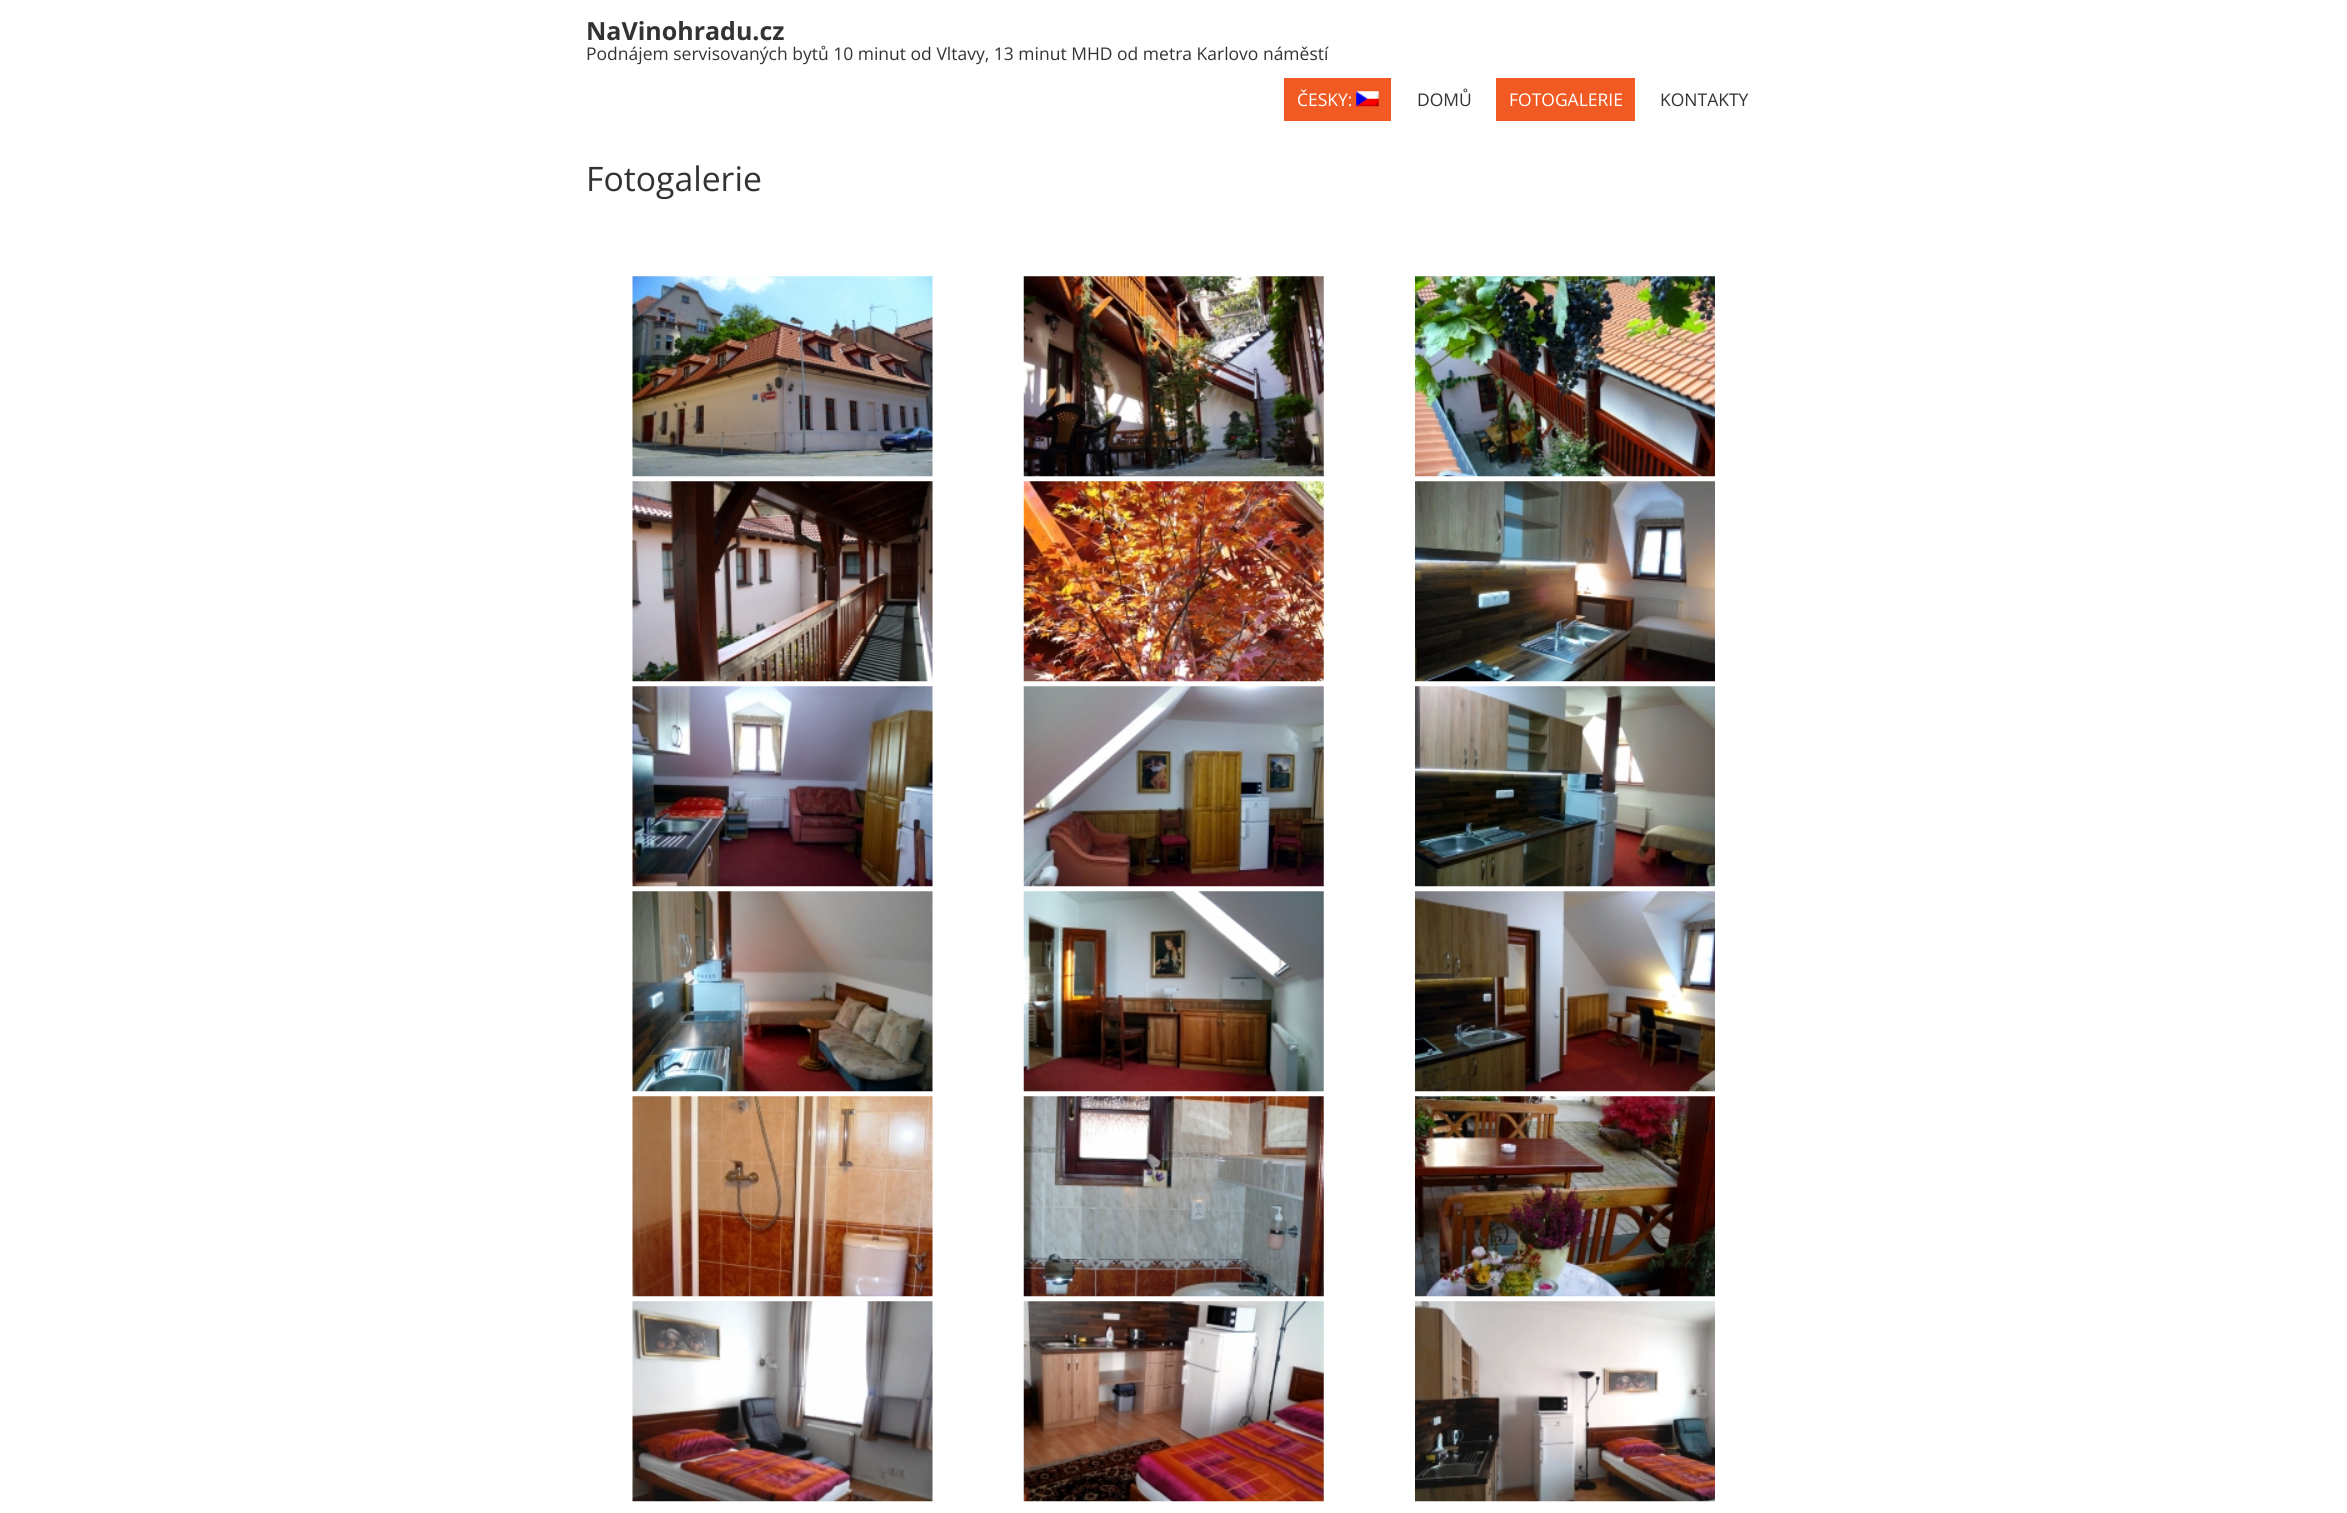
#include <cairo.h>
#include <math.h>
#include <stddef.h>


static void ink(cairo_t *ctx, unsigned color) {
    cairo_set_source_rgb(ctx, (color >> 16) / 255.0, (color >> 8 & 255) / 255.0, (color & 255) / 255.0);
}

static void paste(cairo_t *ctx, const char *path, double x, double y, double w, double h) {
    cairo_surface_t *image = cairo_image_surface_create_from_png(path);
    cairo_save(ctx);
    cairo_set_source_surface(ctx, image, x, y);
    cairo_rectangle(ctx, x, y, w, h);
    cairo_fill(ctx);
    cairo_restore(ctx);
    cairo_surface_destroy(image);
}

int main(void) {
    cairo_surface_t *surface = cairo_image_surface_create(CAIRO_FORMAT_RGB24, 2347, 1513);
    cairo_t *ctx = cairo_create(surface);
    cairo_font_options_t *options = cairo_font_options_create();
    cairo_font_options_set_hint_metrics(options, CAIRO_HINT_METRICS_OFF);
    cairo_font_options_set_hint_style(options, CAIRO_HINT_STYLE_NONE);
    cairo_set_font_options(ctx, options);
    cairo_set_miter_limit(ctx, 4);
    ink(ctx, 0xFFFFFF);
    cairo_paint(ctx);
    cairo_select_font_face(ctx, "Open Sans", CAIRO_FONT_SLANT_NORMAL, CAIRO_FONT_WEIGHT_BOLD);
    cairo_set_font_size(ctx, 25);
    ink(ctx, 0x333333);
    cairo_move_to(ctx, 586, 40);
    cairo_show_text(ctx, "NaVinohradu.cz");
    cairo_select_font_face(ctx, "Open Sans", CAIRO_FONT_SLANT_NORMAL, CAIRO_FONT_WEIGHT_NORMAL);
    cairo_set_font_size(ctx, 17.5);
    cairo_move_to(ctx, 586, 60);
    cairo_show_text(ctx, "Podnájem servisovaných bytů 10 minut od Vltavy, 13 minut MHD od metra Karlovo náměstí");
    ink(ctx, 0xF15A23);
    cairo_rectangle(ctx, 1284, 78, 107, 43);
    cairo_fill(ctx);
    ink(ctx, 0xFFFFFF);
    cairo_move_to(ctx, 1297, 106);
    cairo_show_text(ctx, "ČESKY:");
    paste(ctx, "media/1.png", 1356, 91, 23, 16);
    ink(ctx, 0x333333);
    cairo_move_to(ctx, 1417, 106);
    cairo_show_text(ctx, "DOMŮ");
    ink(ctx, 0xF15A23);
    cairo_rectangle(ctx, 1496, 78, 139, 43);
    cairo_fill(ctx);
    ink(ctx, 0xFFFFFF);
    cairo_move_to(ctx, 1509, 106);
    cairo_show_text(ctx, "FOTOGALERIE");
    ink(ctx, 0x333333);
    cairo_move_to(ctx, 1660, 106);
    cairo_show_text(ctx, "KONTAKTY");
    cairo_set_font_size(ctx, 33.75);
    cairo_move_to(ctx, 586, 191);
    cairo_show_text(ctx, "Fotogalerie");
    paste(ctx, "media/2.png", 632, 276, 301, 201);
    paste(ctx, "media/3.png", 1023, 276, 301, 201);
    paste(ctx, "media/4.png", 1415, 276, 300, 201);
    paste(ctx, "media/5.png", 632, 481, 301, 201);
    paste(ctx, "media/6.png", 1023, 481, 301, 201);
    paste(ctx, "media/7.png", 1415, 481, 300, 201);
    paste(ctx, "media/8.png", 632, 686, 301, 201);
    paste(ctx, "media/9.png", 1023, 686, 301, 201);
    paste(ctx, "media/10.png", 1415, 686, 300, 201);
    paste(ctx, "media/11.png", 632, 891, 301, 201);
    paste(ctx, "media/12.png", 1023, 891, 301, 201);
    paste(ctx, "media/13.png", 1415, 891, 300, 201);
    paste(ctx, "media/14.png", 632, 1096, 301, 201);
    paste(ctx, "media/15.png", 1023, 1096, 301, 201);
    paste(ctx, "media/16.png", 1415, 1096, 300, 201);
    paste(ctx, "media/17.png", 632, 1301, 301, 201);
    paste(ctx, "media/18.png", 1023, 1301, 301, 201);
    paste(ctx, "media/19.png", 1415, 1301, 300, 201);
    cairo_surface_write_to_png(surface, "image.png");
    cairo_font_options_destroy(options);
    cairo_destroy(ctx);
    cairo_surface_destroy(surface);
    return 0;
}
